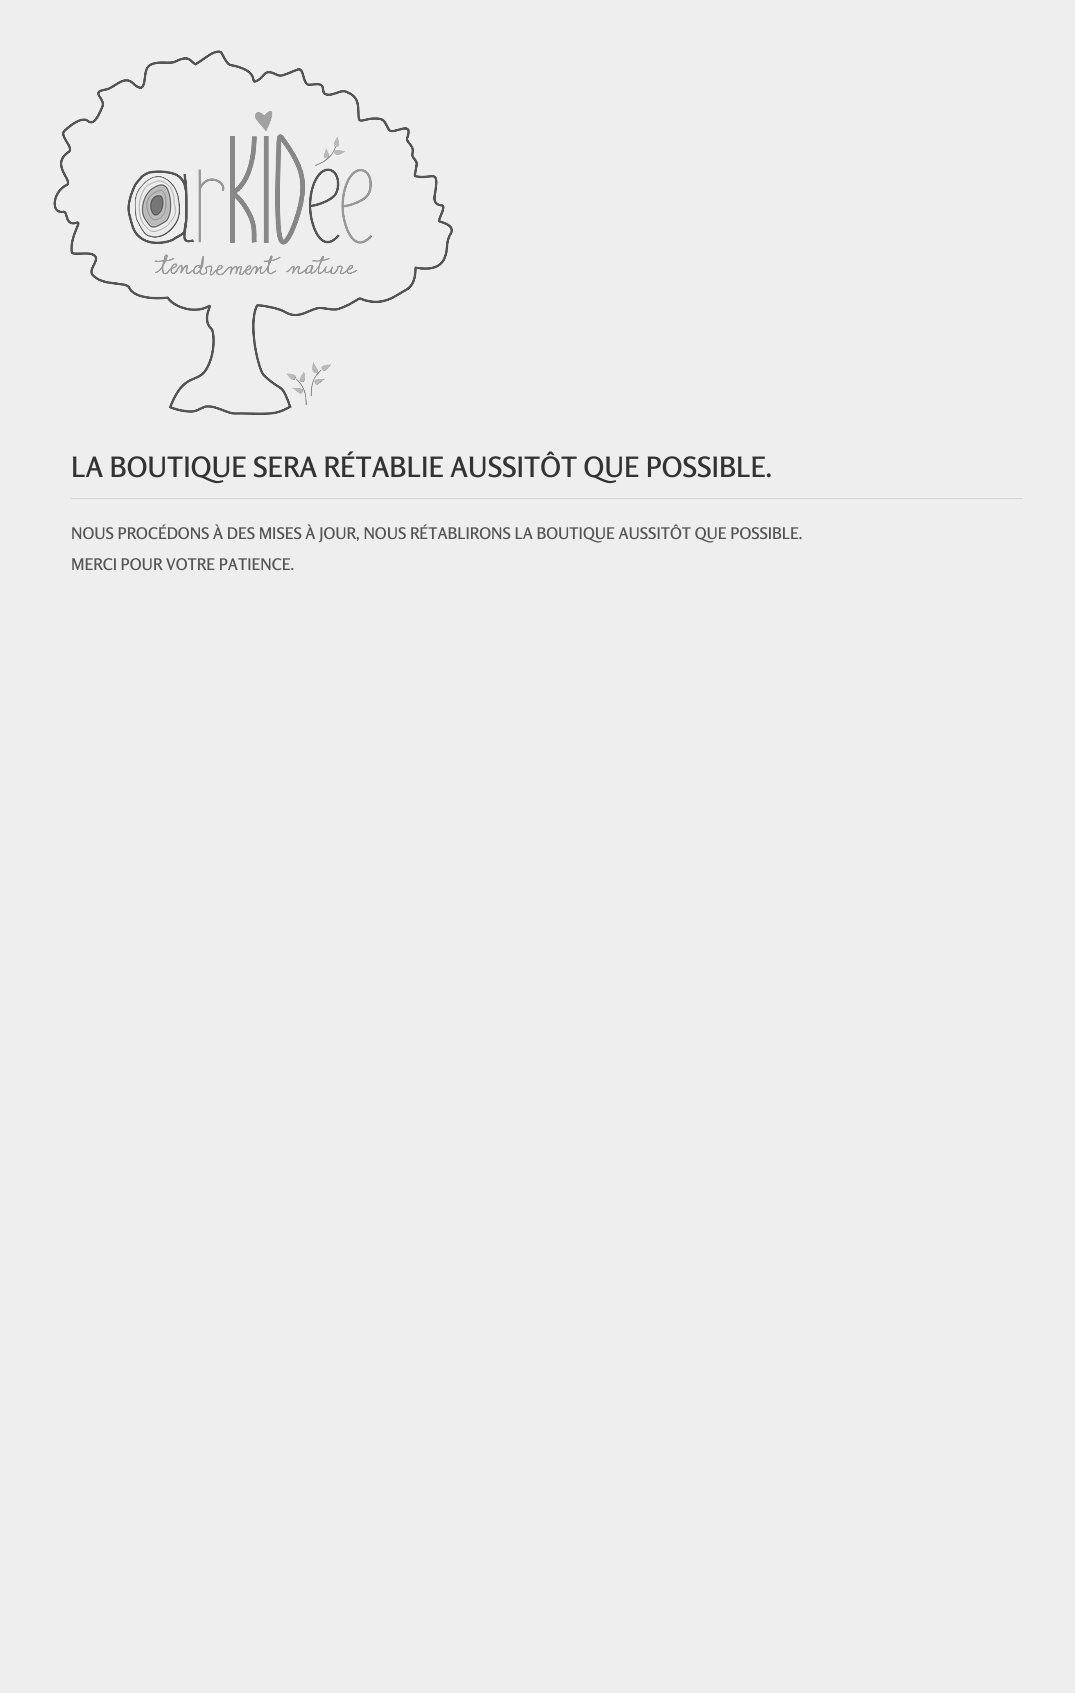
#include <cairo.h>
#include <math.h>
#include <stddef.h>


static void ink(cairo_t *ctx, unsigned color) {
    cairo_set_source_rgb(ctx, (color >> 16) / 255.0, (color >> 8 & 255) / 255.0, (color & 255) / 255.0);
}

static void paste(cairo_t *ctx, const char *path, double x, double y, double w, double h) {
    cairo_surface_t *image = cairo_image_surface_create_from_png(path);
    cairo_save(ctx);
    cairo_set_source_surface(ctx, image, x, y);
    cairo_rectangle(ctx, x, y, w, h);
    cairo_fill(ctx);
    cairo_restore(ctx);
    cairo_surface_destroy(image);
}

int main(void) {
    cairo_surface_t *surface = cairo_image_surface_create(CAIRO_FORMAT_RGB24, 1075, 1693);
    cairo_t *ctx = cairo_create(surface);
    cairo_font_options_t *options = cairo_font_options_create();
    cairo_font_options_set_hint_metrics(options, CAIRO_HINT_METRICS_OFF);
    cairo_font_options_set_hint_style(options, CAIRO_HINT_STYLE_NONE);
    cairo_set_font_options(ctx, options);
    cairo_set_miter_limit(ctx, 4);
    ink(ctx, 0xEEEEEE);
    cairo_paint(ctx);
    paste(ctx, "media/1.png", 53, 50, 400, 365);
    ink(ctx, 0xD6D4D4);
    cairo_rectangle(ctx, 71, 498, 952, 1);
    cairo_fill(ctx);
    cairo_select_font_face(ctx, "Rosario SemiBold", CAIRO_FONT_SLANT_NORMAL, CAIRO_FONT_WEIGHT_NORMAL);
    cairo_set_font_size(ctx, 28);
    ink(ctx, 0x333333);
    cairo_move_to(ctx, 71, 477);
    cairo_show_text(ctx, "LA BOUTIQUE SERA RÉTABLIE AUSSITÔT QUE POSSIBLE.");
    cairo_set_font_size(ctx, 16);
    ink(ctx, 0x555454);
    cairo_move_to(ctx, 71, 539);
    cairo_show_text(ctx, "NOUS PROCÉDONS À DES MISES À JOUR, NOUS RÉTABLIRONS LA BOUTIQUE AUSSITÔT QUE POSSIBLE.");
    cairo_move_to(ctx, 71, 570);
    cairo_show_text(ctx, "MERCI POUR VOTRE PATIENCE.");
    cairo_surface_write_to_png(surface, "image.png");
    cairo_font_options_destroy(options);
    cairo_destroy(ctx);
    cairo_surface_destroy(surface);
    return 0;
}
